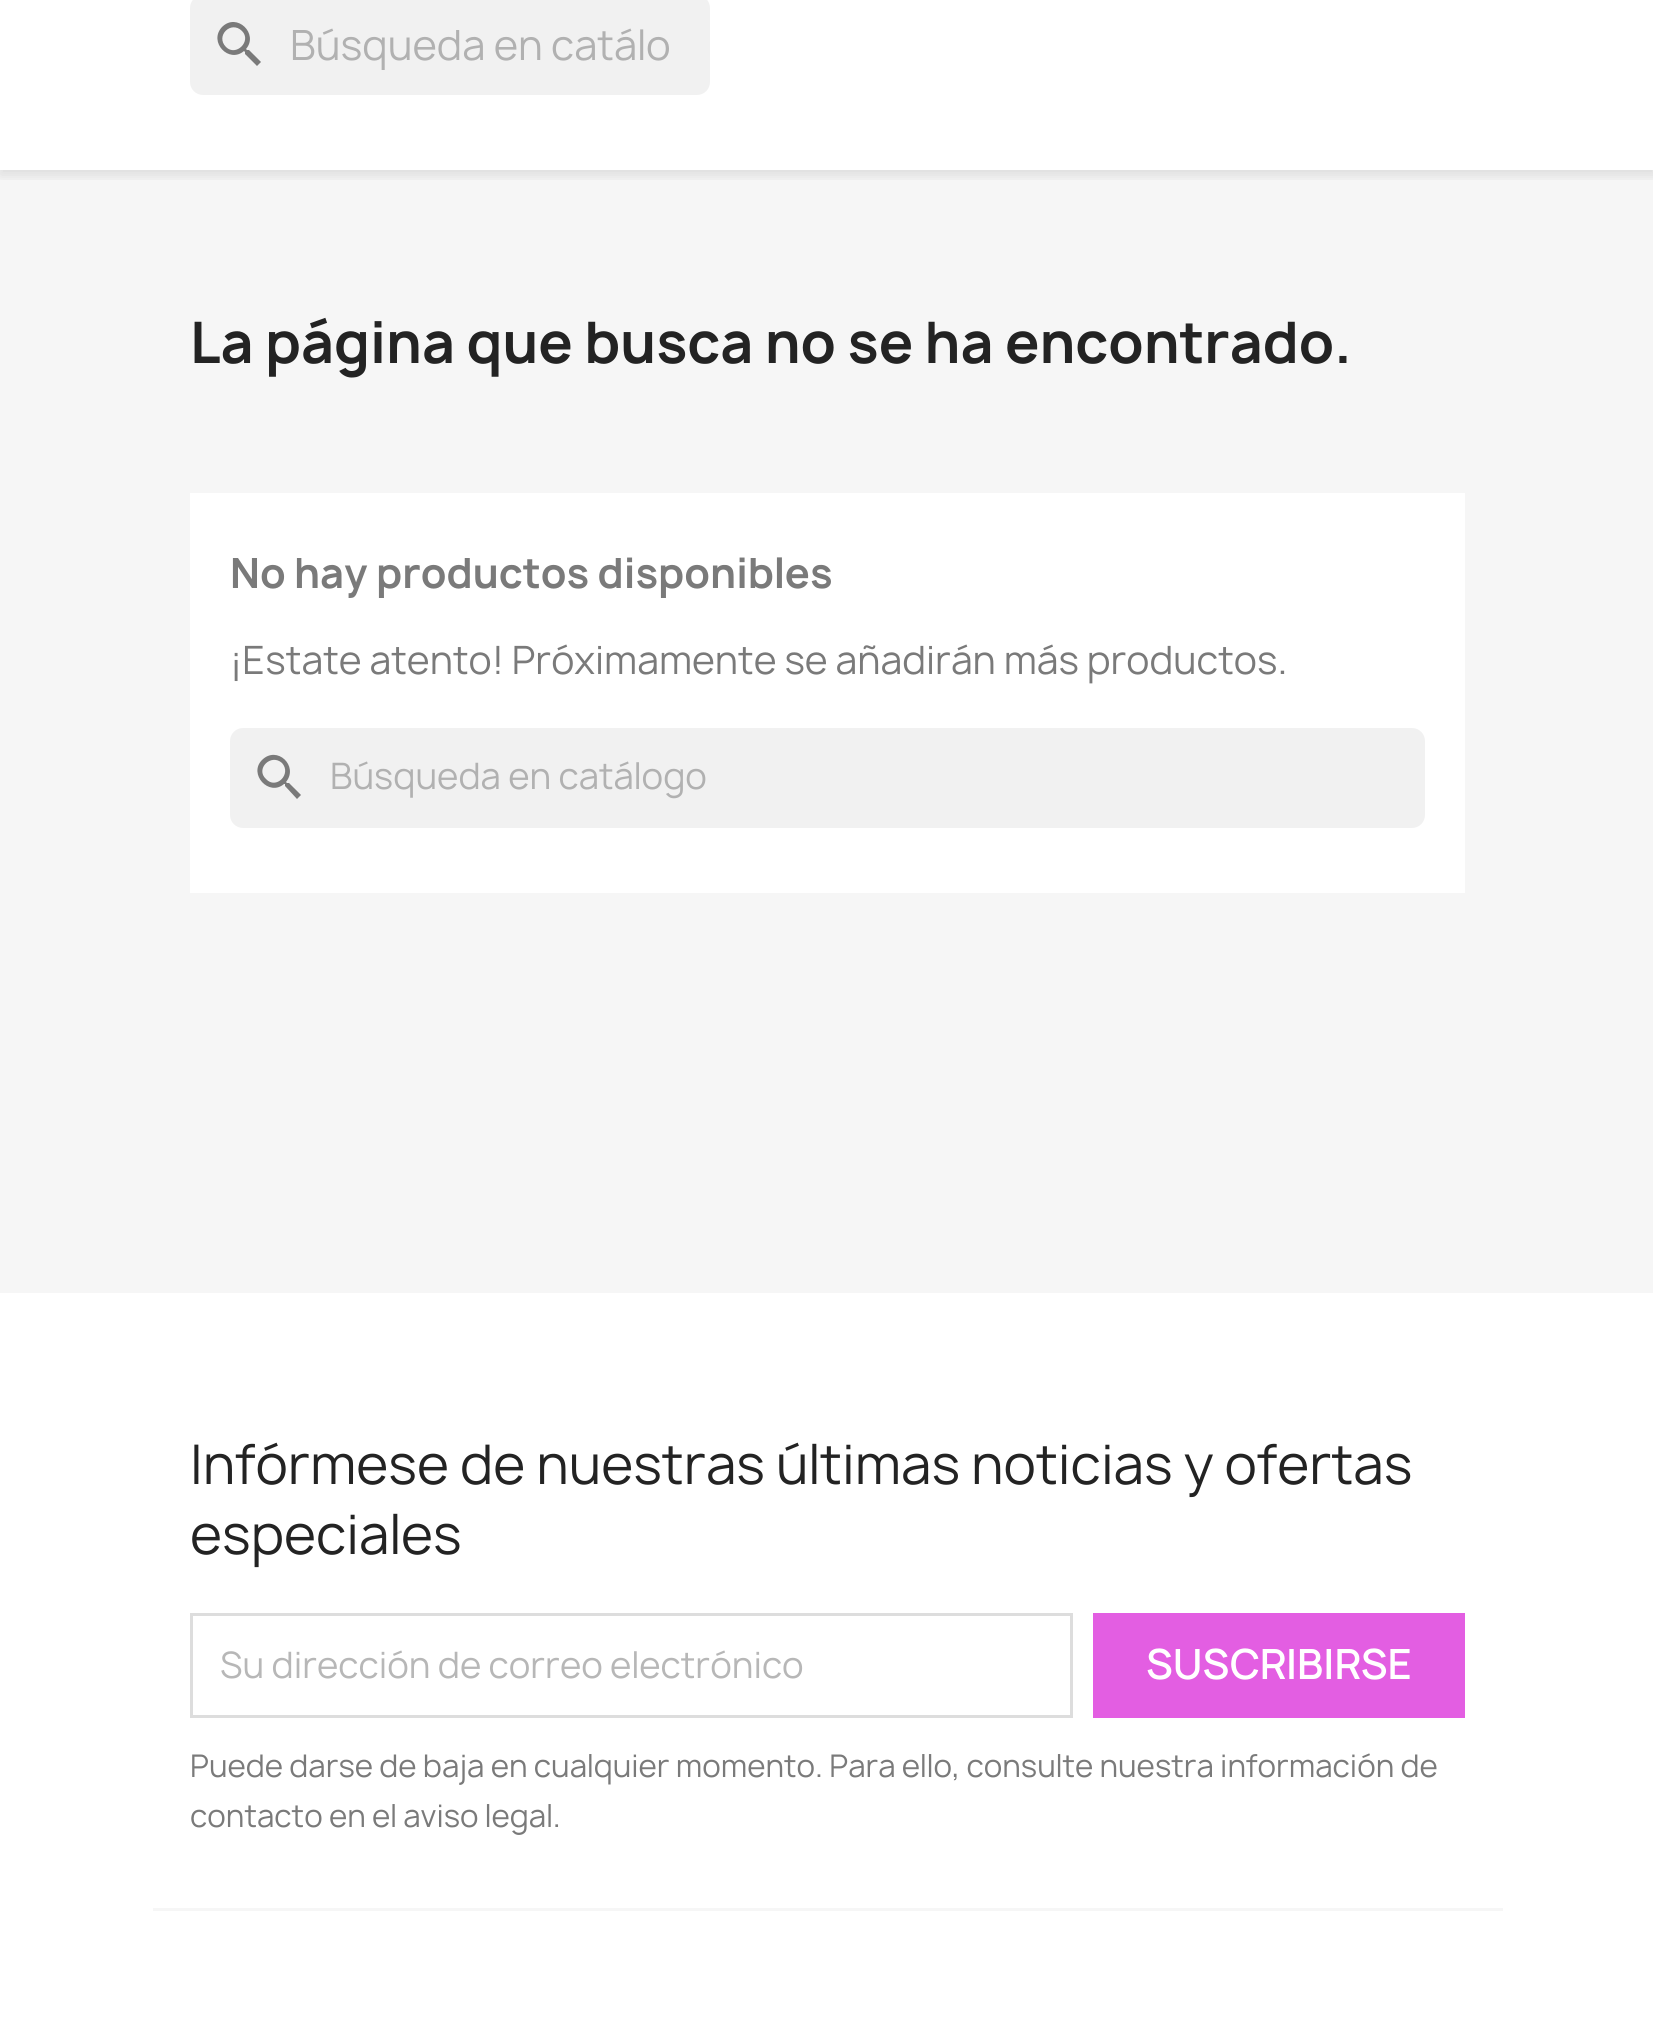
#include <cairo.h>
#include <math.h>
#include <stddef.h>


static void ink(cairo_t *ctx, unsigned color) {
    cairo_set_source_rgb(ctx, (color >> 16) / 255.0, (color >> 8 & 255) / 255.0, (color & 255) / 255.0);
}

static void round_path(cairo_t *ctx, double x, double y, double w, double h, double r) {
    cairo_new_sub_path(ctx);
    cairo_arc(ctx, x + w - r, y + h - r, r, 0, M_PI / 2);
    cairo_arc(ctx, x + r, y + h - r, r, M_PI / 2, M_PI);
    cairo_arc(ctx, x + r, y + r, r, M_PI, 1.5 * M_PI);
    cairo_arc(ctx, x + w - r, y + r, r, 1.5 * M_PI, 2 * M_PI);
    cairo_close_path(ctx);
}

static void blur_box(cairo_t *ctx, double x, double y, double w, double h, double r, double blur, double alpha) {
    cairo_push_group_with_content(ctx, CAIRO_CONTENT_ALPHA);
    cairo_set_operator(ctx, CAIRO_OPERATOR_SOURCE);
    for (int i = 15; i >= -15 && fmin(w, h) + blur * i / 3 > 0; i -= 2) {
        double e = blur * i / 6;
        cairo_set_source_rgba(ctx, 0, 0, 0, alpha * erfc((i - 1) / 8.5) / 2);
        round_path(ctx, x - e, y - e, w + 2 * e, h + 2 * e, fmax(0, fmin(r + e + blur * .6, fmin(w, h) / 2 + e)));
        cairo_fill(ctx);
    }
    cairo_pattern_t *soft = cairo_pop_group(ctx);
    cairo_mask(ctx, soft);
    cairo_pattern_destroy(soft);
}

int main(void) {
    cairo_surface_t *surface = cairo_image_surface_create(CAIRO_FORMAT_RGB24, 1653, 2039);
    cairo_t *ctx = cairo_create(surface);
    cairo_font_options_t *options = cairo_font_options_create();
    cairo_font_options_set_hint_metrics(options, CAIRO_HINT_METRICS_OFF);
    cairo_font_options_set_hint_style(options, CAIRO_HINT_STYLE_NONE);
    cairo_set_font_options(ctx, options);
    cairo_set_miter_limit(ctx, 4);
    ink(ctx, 0xFFFFFF);
    cairo_paint(ctx);
    ink(ctx, 0xF6F6F6);
    cairo_rectangle(ctx, 0, 170, 1653, 1123);
    cairo_fill(ctx);
    cairo_save(ctx);
    cairo_rectangle(ctx, 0, 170, 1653, 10);
    cairo_clip(ctx);
    ink(ctx, 0x000000);
    blur_box(ctx, 0, -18, 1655, 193, 0, 6, 0.11);
    cairo_restore(ctx);
    ink(ctx, 0xF1F1F1);
    round_path(ctx, 190, -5, 520, 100, 13);
    cairo_fill(ctx);
    ink(ctx, 0x7A7A7A);
    cairo_new_path(ctx);
    cairo_move_to(ctx, 226, 47);
    cairo_curve_to(ctx, 236, 57, 252, 41, 242, 31);
    cairo_curve_to(ctx, 231, 20, 215, 36, 226, 47);
    cairo_close_path(ctx);
    cairo_move_to(ctx, 249, 50);
    cairo_line_to(ctx, 261, 62);
    cairo_line_to(ctx, 257, 66);
    cairo_line_to(ctx, 245, 54);
    cairo_line_to(ctx, 245, 52);
    cairo_line_to(ctx, 244, 51);
    cairo_curve_to(ctx, 229, 64, 208, 42, 222, 27);
    cairo_curve_to(ctx, 237, 12, 259, 34, 246, 49);
    cairo_line_to(ctx, 247, 50);
    cairo_close_path(ctx);
    cairo_fill(ctx);
    cairo_select_font_face(ctx, "Manrope", CAIRO_FONT_SLANT_NORMAL, CAIRO_FONT_WEIGHT_NORMAL);
    cairo_set_font_size(ctx, 40);
    ink(ctx, 0xB1B1B1);
    cairo_move_to(ctx, 290, 60);
    cairo_show_text(ctx, "Búsqueda en catálo");
    cairo_select_font_face(ctx, "Manrope", CAIRO_FONT_SLANT_NORMAL, CAIRO_FONT_WEIGHT_BOLD);
    cairo_set_font_size(ctx, 55);
    ink(ctx, 0x232323);
    cairo_move_to(ctx, 190, 363);
    cairo_show_text(ctx, "La página que busca no se ha encontrado.");
    ink(ctx, 0xFFFFFF);
    cairo_rectangle(ctx, 190, 493, 1275, 400);
    cairo_fill(ctx);
    cairo_set_font_size(ctx, 40);
    ink(ctx, 0x7A7A7A);
    cairo_move_to(ctx, 230, 588);
    cairo_show_text(ctx, "No hay productos disponibles");
    cairo_select_font_face(ctx, "Manrope", CAIRO_FONT_SLANT_NORMAL, CAIRO_FONT_WEIGHT_NORMAL);
    cairo_set_font_size(ctx, 37.5);
    cairo_move_to(ctx, 230, 674);
    cairo_show_text(ctx, "¡Estate atento! Próximamente se añadirán más productos.");
    ink(ctx, 0xF1F1F1);
    round_path(ctx, 230, 728, 1195, 100, 13);
    cairo_fill(ctx);
    ink(ctx, 0x7A7A7A);
    cairo_new_path(ctx);
    cairo_move_to(ctx, 266, 779);
    cairo_curve_to(ctx, 276, 790, 292, 774, 282, 763);
    cairo_curve_to(ctx, 271, 753, 255, 769, 266, 779);
    cairo_close_path(ctx);
    cairo_move_to(ctx, 289, 783);
    cairo_line_to(ctx, 301, 795);
    cairo_line_to(ctx, 297, 799);
    cairo_line_to(ctx, 285, 786);
    cairo_line_to(ctx, 285, 784);
    cairo_line_to(ctx, 284, 784);
    cairo_curve_to(ctx, 269, 797, 248, 774, 262, 760);
    cairo_curve_to(ctx, 277, 745, 299, 766, 286, 782);
    cairo_line_to(ctx, 287, 783);
    cairo_close_path(ctx);
    cairo_fill(ctx);
    cairo_set_font_size(ctx, 35);
    ink(ctx, 0xB1B1B1);
    cairo_move_to(ctx, 330, 789);
    cairo_show_text(ctx, "Búsqueda en catálogo");
    ink(ctx, 0xF6F6F6);
    cairo_rectangle(ctx, 153, 1908, 1350, 3);
    cairo_fill(ctx);
    cairo_set_font_size(ctx, 52.5);
    ink(ctx, 0x232323);
    cairo_move_to(ctx, 190, 1484);
    cairo_show_text(ctx, "Infórmese de nuestras últimas noticias y ofertas");
    cairo_move_to(ctx, 190, 1554);
    cairo_show_text(ctx, "especiales");
    cairo_rectangle(ctx, 191.5, 1614.5, 880, 102);
    ink(ctx, 0xDDDDDD);
    cairo_set_line_width(ctx, 3);
    cairo_stroke(ctx);
    cairo_set_font_size(ctx, 35);
    ink(ctx, 0xB7B7B7);
    cairo_move_to(ctx, 220, 1678);
    cairo_show_text(ctx, "Su dirección de correo electrónico");
    ink(ctx, 0xE35EE2);
    cairo_rectangle(ctx, 1093, 1613, 372, 105);
    cairo_fill(ctx);
    cairo_select_font_face(ctx, "Manrope SemiBold", CAIRO_FONT_SLANT_NORMAL, CAIRO_FONT_WEIGHT_NORMAL);
    cairo_set_font_size(ctx, 40);
    ink(ctx, 0xFFFFFF);
    cairo_move_to(ctx, 1146, 1679);
    cairo_show_text(ctx, "SUSCRIBIRSE");
    cairo_select_font_face(ctx, "Manrope", CAIRO_FONT_SLANT_NORMAL, CAIRO_FONT_WEIGHT_NORMAL);
    cairo_set_font_size(ctx, 30);
    ink(ctx, 0x7A7A7A);
    cairo_move_to(ctx, 190, 1777);
    cairo_show_text(ctx, "Puede darse de baja en cualquier momento. Para ello, consulte nuestra información de");
    cairo_move_to(ctx, 190, 1827);
    cairo_show_text(ctx, "contacto en el aviso legal.");
    cairo_surface_write_to_png(surface, "image.png");
    cairo_font_options_destroy(options);
    cairo_destroy(ctx);
    cairo_surface_destroy(surface);
    return 0;
}
